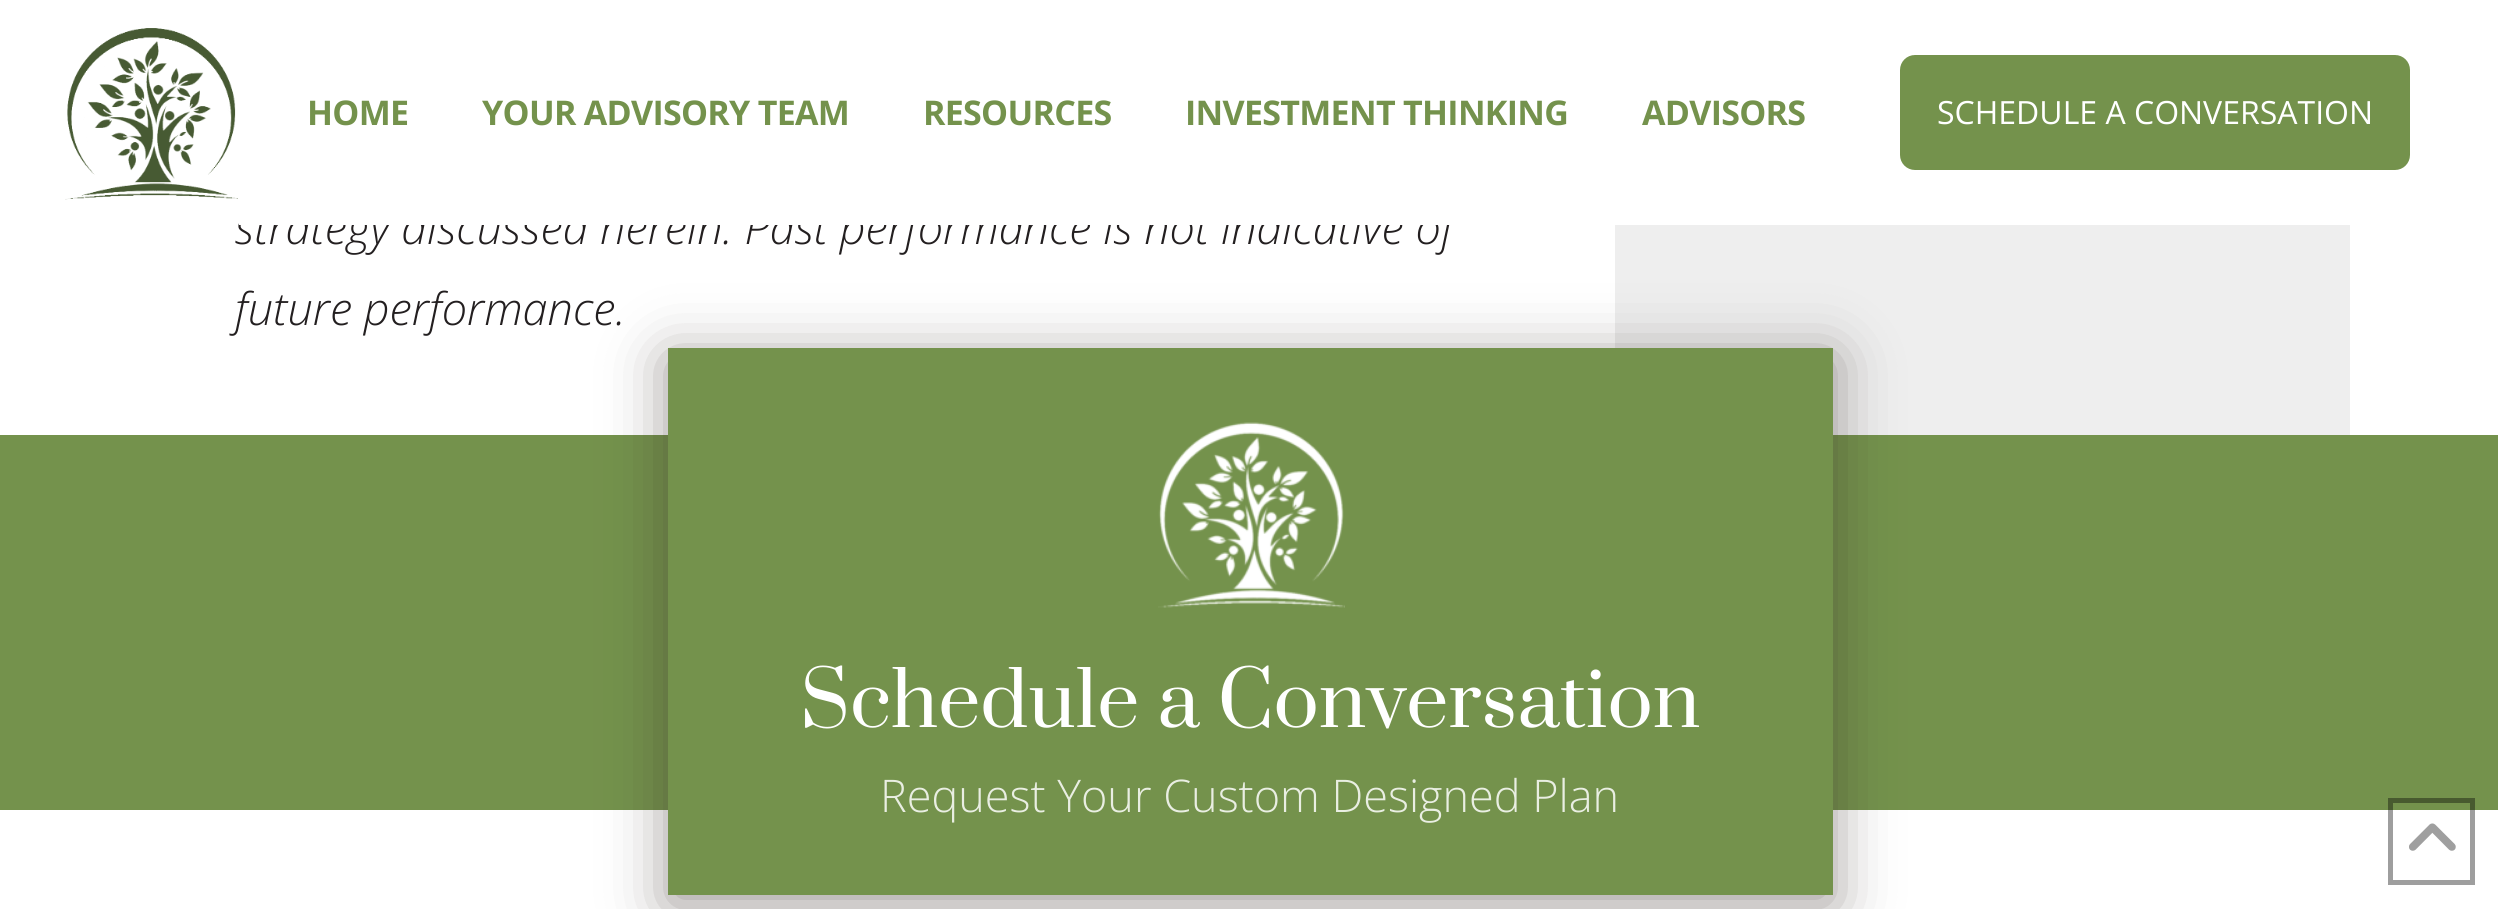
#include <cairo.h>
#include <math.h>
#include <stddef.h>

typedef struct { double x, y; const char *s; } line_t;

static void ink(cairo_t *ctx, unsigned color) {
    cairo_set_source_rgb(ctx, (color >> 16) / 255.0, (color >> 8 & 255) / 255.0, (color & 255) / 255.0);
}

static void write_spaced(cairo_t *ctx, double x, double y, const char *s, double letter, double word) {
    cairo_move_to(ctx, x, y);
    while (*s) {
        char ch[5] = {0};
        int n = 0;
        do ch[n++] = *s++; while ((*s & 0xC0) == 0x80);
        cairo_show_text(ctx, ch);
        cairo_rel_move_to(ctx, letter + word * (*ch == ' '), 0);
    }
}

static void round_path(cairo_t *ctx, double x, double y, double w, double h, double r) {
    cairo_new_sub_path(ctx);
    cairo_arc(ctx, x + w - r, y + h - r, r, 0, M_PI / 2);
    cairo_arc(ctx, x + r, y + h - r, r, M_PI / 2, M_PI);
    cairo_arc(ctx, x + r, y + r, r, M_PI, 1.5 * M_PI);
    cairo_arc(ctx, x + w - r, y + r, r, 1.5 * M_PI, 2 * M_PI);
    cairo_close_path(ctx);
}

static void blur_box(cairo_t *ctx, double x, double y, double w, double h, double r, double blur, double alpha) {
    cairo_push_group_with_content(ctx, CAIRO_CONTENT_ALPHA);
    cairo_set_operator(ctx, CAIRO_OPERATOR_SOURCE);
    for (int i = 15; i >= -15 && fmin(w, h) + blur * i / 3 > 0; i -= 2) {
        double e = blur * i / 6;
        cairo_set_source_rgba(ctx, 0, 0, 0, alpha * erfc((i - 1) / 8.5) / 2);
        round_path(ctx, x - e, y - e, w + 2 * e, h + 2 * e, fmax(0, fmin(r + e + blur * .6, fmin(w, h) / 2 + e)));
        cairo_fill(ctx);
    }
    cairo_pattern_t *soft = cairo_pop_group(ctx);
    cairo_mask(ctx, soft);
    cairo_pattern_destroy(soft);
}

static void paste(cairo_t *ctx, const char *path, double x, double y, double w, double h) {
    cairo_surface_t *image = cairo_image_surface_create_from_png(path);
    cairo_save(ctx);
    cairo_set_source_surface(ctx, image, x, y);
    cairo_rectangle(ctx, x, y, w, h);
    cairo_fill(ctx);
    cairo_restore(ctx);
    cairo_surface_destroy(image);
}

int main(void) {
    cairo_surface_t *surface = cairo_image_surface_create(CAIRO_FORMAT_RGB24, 2498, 909);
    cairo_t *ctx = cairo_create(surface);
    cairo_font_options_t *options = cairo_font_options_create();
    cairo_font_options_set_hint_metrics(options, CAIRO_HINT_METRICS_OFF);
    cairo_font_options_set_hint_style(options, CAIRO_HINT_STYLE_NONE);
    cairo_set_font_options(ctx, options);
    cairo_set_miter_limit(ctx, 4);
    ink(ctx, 0xFFFFFF);
    cairo_paint(ctx);
    cairo_select_font_face(ctx, "Open Sans Light", CAIRO_FONT_SLANT_ITALIC, CAIRO_FONT_WEIGHT_NORMAL);
    cairo_set_font_size(ctx, 45);
    ink(ctx, 0x231F20);
    cairo_move_to(ctx, 235, 244);
    cairo_show_text(ctx, "strategy discussed herein. Past performance is not indicative of");
    ink(ctx, 0xFFFFFF);
    cairo_rectangle(ctx, 239, 209, 1222, 16);
    cairo_fill(ctx);
    paste(ctx, "media/1.png", 65, 28, 173, 172);
    cairo_select_font_face(ctx, "Open Sans", CAIRO_FONT_SLANT_NORMAL, CAIRO_FONT_WEIGHT_BOLD);
    cairo_set_font_size(ctx, 34);
    ink(ctx, 0x74924C);
    {
        static const line_t items[] = {
            {307, 125, "HOME"},
            {482, 125, "YOUR ADVISORY TEAM"},
            {923, 125, "RESOURCES"},
            {1185, 125, "INVESTMENT THINKING"},
            {1642, 125, "ADVISORS"},
        };
        for (size_t i = 0; i < sizeof items / sizeof *items; i++) {
            write_spaced(ctx, items[i].x, items[i].y, items[i].s, -0.7, 0);
        }
    }
    round_path(ctx, 1902.5, 57.5, 505, 110, 12.5);
    cairo_fill_preserve(ctx);
    cairo_set_line_width(ctx, 5);
    cairo_stroke(ctx);
    cairo_select_font_face(ctx, "Open Sans", CAIRO_FONT_SLANT_NORMAL, CAIRO_FONT_WEIGHT_NORMAL);
    cairo_set_font_size(ctx, 32);
    ink(ctx, 0xFFFFFF);
    cairo_move_to(ctx, 1937, 124);
    cairo_show_text(ctx, "SCHEDULE A CONVERSATION");
    ink(ctx, 0xEEEEEE);
    cairo_rectangle(ctx, 1615, 225, 735, 210);
    cairo_fill(ctx);
    cairo_select_font_face(ctx, "Open Sans Light", CAIRO_FONT_SLANT_ITALIC, CAIRO_FONT_WEIGHT_NORMAL);
    cairo_set_font_size(ctx, 45);
    ink(ctx, 0x231F20);
    cairo_move_to(ctx, 235, 325);
    cairo_show_text(ctx, "future performance.");
    ink(ctx, 0x74924C);
    cairo_rectangle(ctx, 0, 435, 2498, 375);
    cairo_fill(ctx);
    ink(ctx, 0x392E29);
    blur_box(ctx, 668, 358, 1165, 547, 0, 30, 0.49);
    ink(ctx, 0x74924C);
    cairo_rectangle(ctx, 668, 348, 1165, 547);
    cairo_fill(ctx);
    paste(ctx, "media/2.png", 1158, 422, 187, 186);
    cairo_select_font_face(ctx, "Prata", CAIRO_FONT_SLANT_NORMAL, CAIRO_FONT_WEIGHT_NORMAL);
    cairo_set_font_size(ctx, 75);
    ink(ctx, 0xFFFFFF);
    cairo_move_to(ctx, 800, 727);
    cairo_show_text(ctx, "Schedule a Conversation");
    cairo_select_font_face(ctx, "Open Sans Light", CAIRO_FONT_SLANT_NORMAL, CAIRO_FONT_WEIGHT_NORMAL);
    cairo_set_font_size(ctx, 45);
    ink(ctx, 0xE9EEE2);
    cairo_move_to(ctx, 880, 812);
    cairo_show_text(ctx, "Request Your Custom Designed Plan");
    cairo_rectangle(ctx, 2390.5, 800.5, 82, 82);
    cairo_set_source_rgba(ctx, 0, 0, 0, 0.38);
    cairo_stroke(ctx);
    paste(ctx, "media/3.png", 2409, 823, 47, 28);
    cairo_surface_write_to_png(surface, "image.png");
    cairo_font_options_destroy(options);
    cairo_destroy(ctx);
    cairo_surface_destroy(surface);
    return 0;
}
